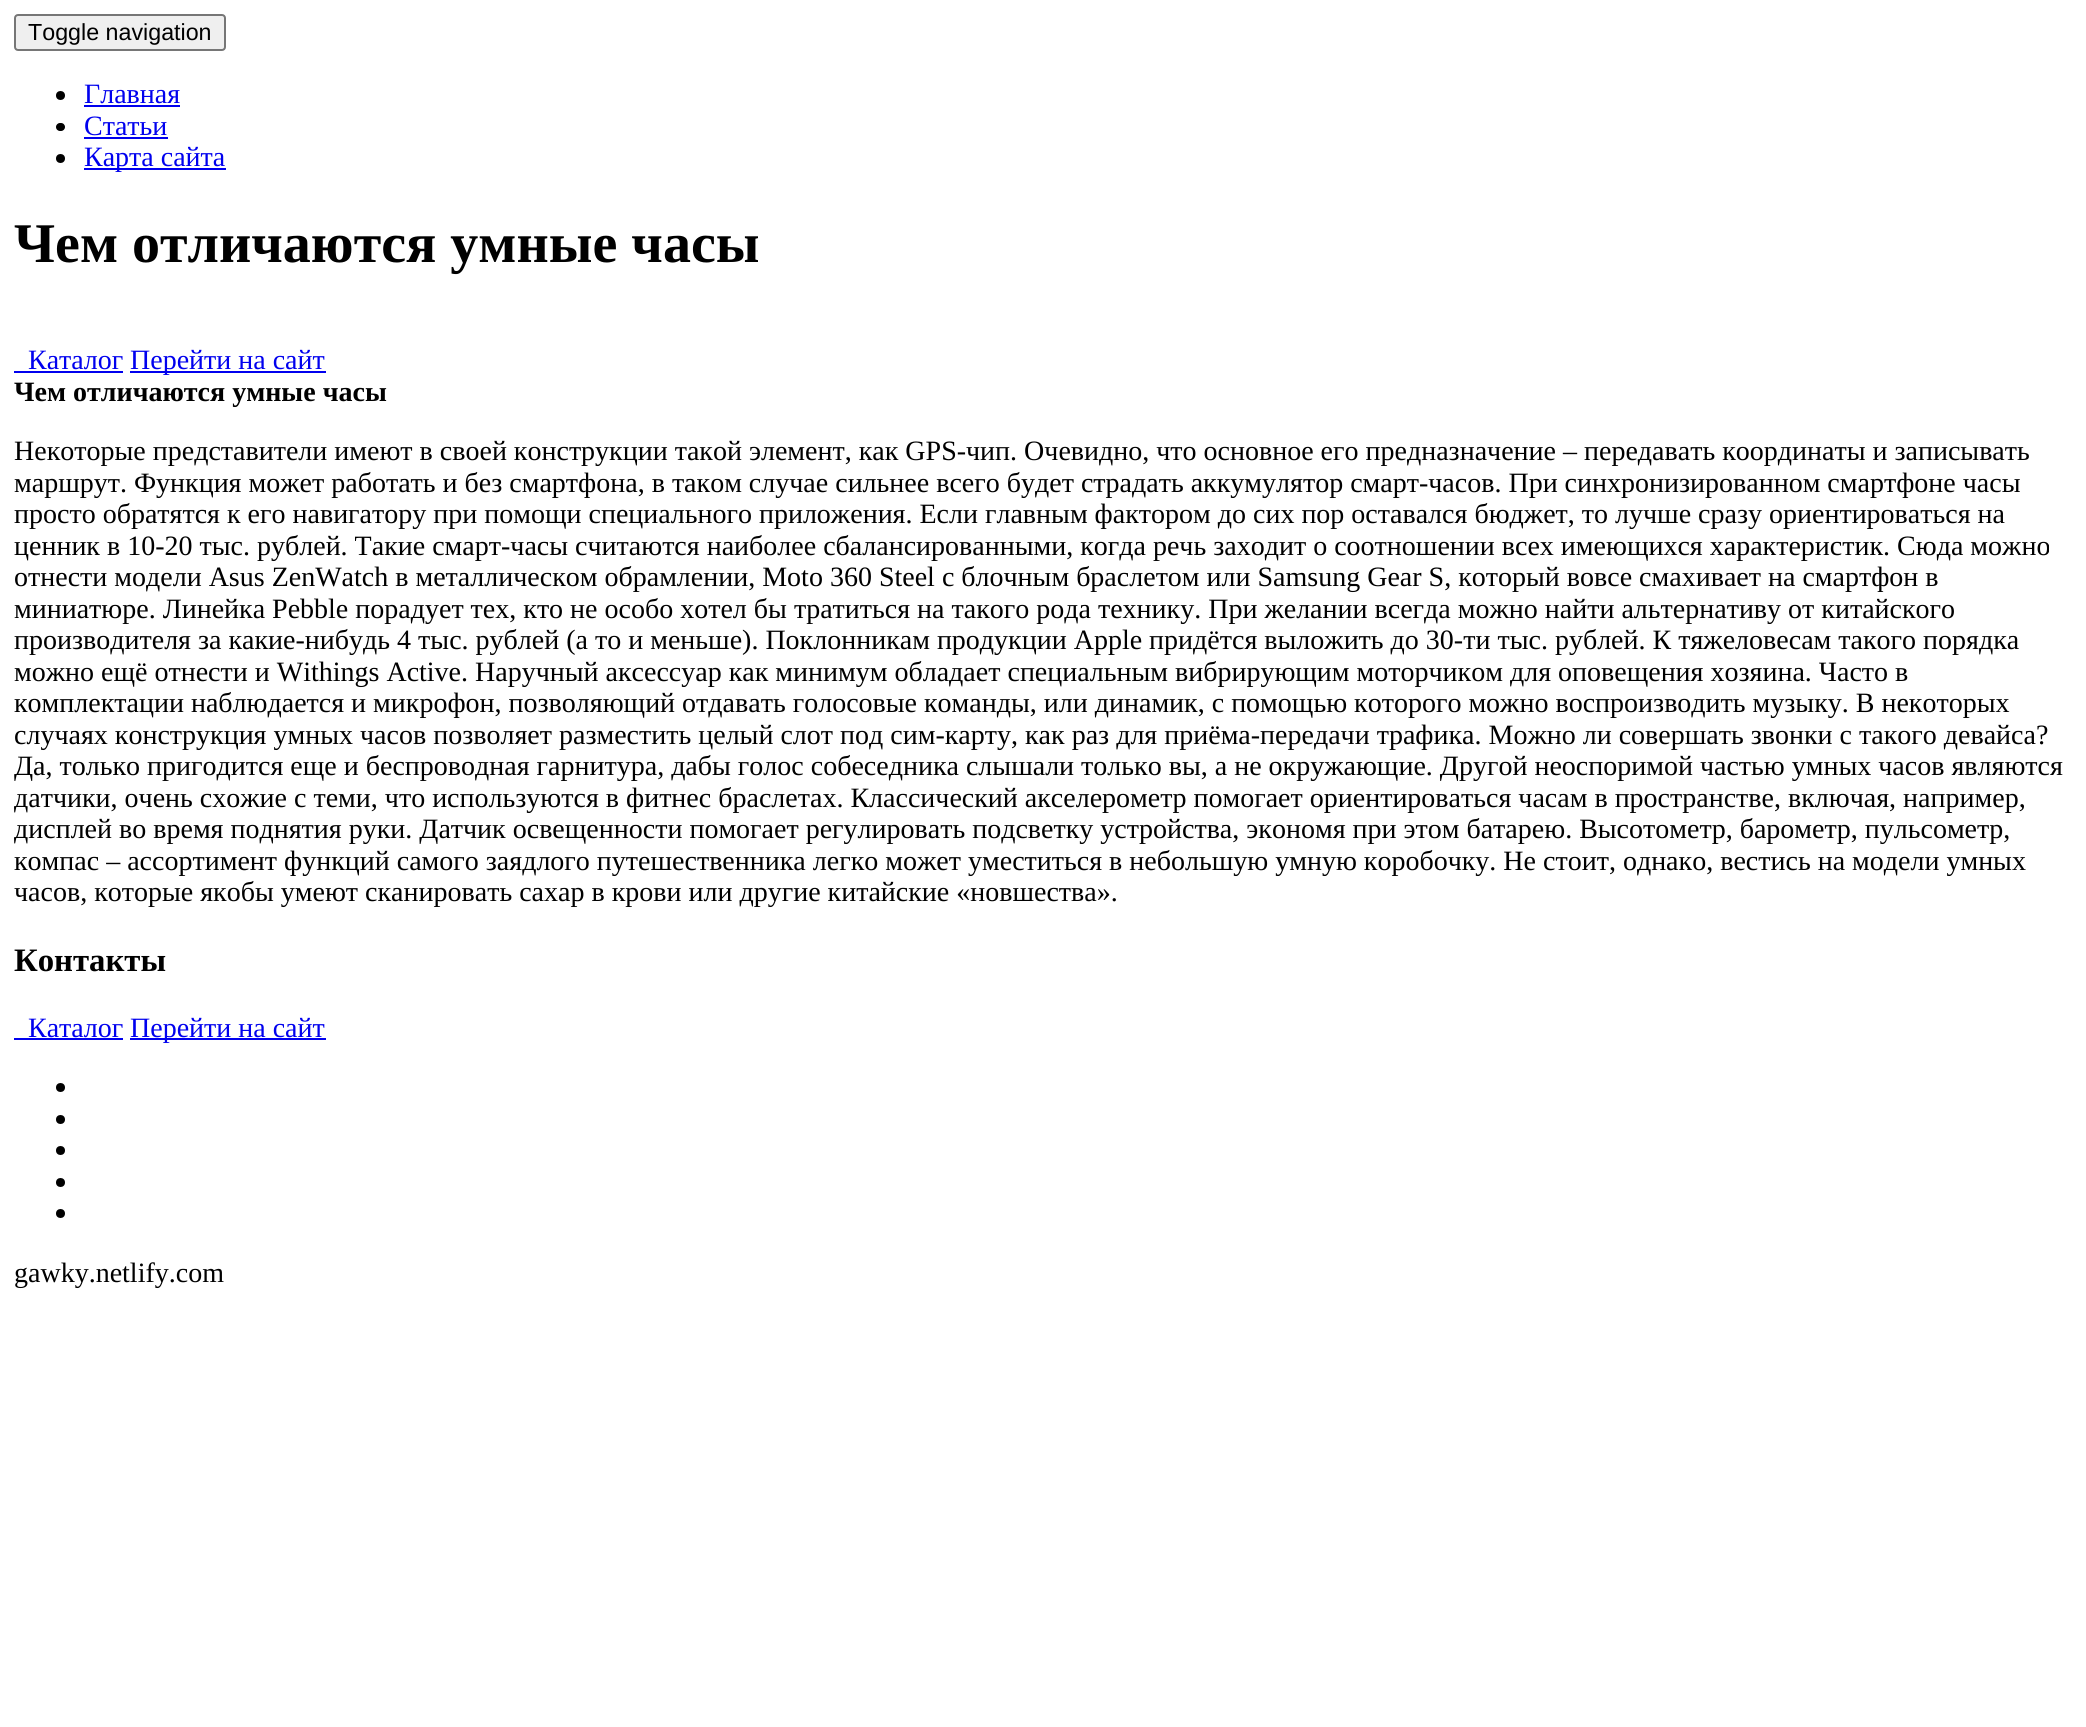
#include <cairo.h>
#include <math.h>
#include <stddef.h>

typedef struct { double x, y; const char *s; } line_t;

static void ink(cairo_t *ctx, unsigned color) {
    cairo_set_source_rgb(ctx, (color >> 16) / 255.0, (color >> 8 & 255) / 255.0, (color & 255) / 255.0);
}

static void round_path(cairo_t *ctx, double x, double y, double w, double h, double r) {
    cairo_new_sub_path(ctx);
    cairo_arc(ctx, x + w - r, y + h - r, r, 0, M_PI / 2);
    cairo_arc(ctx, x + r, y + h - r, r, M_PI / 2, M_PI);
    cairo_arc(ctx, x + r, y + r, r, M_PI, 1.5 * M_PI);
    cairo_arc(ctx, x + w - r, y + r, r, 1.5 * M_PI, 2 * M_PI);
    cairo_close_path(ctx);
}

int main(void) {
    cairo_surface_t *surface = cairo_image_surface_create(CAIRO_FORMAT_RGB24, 2086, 1727);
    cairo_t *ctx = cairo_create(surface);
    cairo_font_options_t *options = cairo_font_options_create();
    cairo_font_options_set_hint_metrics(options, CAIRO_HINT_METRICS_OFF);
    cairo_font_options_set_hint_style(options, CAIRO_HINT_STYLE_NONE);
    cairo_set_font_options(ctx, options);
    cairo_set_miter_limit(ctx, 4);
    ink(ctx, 0xFFFFFF);
    cairo_paint(ctx);
    ink(ctx, 0xEFEFEF);
    round_path(ctx, 15, 15, 210, 35, 3);
    cairo_fill_preserve(ctx);
    ink(ctx, 0x767676);
    cairo_stroke(ctx);
    cairo_select_font_face(ctx, "Liberation Sans", CAIRO_FONT_SLANT_NORMAL, CAIRO_FONT_WEIGHT_NORMAL);
    cairo_set_font_size(ctx, 23.25);
    ink(ctx, 0x000000);
    cairo_move_to(ctx, 28, 40);
    cairo_show_text(ctx, "Toggle navigation");
    cairo_new_path(ctx);
    cairo_arc(ctx, 60.5, 95.5, 4.5, 0, 2 * M_PI);
    cairo_fill(ctx);
    cairo_select_font_face(ctx, "Liberation Serif", CAIRO_FONT_SLANT_NORMAL, CAIRO_FONT_WEIGHT_NORMAL);
    cairo_set_font_size(ctx, 28);
    ink(ctx, 0x0000EE);
    cairo_move_to(ctx, 84, 103);
    cairo_show_text(ctx, "Главная");
    cairo_rectangle(ctx, 84, 105, 96, 2);
    cairo_fill(ctx);
    ink(ctx, 0x000000);
    round_path(ctx, 56, 123, 9, 8, 4);
    cairo_fill(ctx);
    ink(ctx, 0x0000EE);
    cairo_move_to(ctx, 84, 135);
    cairo_show_text(ctx, "Статьи");
    cairo_rectangle(ctx, 84, 137, 84, 2);
    cairo_fill(ctx);
    ink(ctx, 0x000000);
    cairo_arc(ctx, 60.5, 158.5, 4.5, 0, 2 * M_PI);
    cairo_fill(ctx);
    ink(ctx, 0x0000EE);
    cairo_rectangle(ctx, 84, 168, 142, 2);
    cairo_fill(ctx);
    cairo_move_to(ctx, 84, 166);
    cairo_show_text(ctx, "Карта сайта");
    cairo_select_font_face(ctx, "Liberation Serif", CAIRO_FONT_SLANT_NORMAL, CAIRO_FONT_WEIGHT_BOLD);
    cairo_set_font_size(ctx, 56);
    ink(ctx, 0x000000);
    cairo_move_to(ctx, 14, 262);
    cairo_show_text(ctx, "Чем отличаются умные часы");
    cairo_select_font_face(ctx, "Liberation Serif", CAIRO_FONT_SLANT_NORMAL, CAIRO_FONT_WEIGHT_NORMAL);
    cairo_set_font_size(ctx, 28);
    ink(ctx, 0x0000EE);
    cairo_move_to(ctx, 28, 369);
    cairo_show_text(ctx, "Каталог");
    cairo_rectangle(ctx, 14, 371, 109, 2);
    cairo_fill(ctx);
    cairo_rectangle(ctx, 130, 371, 196, 2);
    cairo_fill(ctx);
    cairo_move_to(ctx, 130, 369);
    cairo_show_text(ctx, "Перейти на сайт");
    cairo_select_font_face(ctx, "Liberation Serif", CAIRO_FONT_SLANT_NORMAL, CAIRO_FONT_WEIGHT_BOLD);
    ink(ctx, 0x000000);
    cairo_move_to(ctx, 14, 401);
    cairo_show_text(ctx, "Чем отличаются умные часы");
    cairo_select_font_face(ctx, "Liberation Serif", CAIRO_FONT_SLANT_NORMAL, CAIRO_FONT_WEIGHT_NORMAL);
    {
        static const line_t items[] = {
            {14, 460, "Некоторые представители имеют в своей конструкции такой элемент, как GPS-чип. Очевидно, что основное его предназначение – передавать координаты и записывать"},
            {14, 492, "маршрут. Функция может работать и без смартфона, в таком случае сильнее всего будет страдать аккумулятор смарт-часов. При синхронизированном смартфоне часы"},
            {14, 523, "просто обратятся к его навигатору при помощи специального приложения. Если главным фактором до сих пор оставался бюджет, то лучше сразу ориентироваться на"},
            {14, 555, "ценник в 10-20 тыс. рублей. Такие смарт-часы считаются наиболее сбалансированными, когда речь заходит о соотношении всех имеющихся характеристик. Сюда можно"},
            {14, 586, "отнести модели Asus ZenWatch в металлическом обрамлении, Moto 360 Steel с блочным браслетом или Samsung Gear S, который вовсе смахивает на смартфон в"},
            {14, 618, "миниатюре. Линейка Pebble порадует тех, кто не особо хотел бы тратиться на такого рода технику. При желании всегда можно найти альтернативу от китайского"},
            {14, 649, "производителя за какие-нибудь 4 тыс. рублей (а то и меньше). Поклонникам продукции Apple придётся выложить до 30-ти тыс. рублей. К тяжеловесам такого порядка"},
            {14, 681, "можно ещё отнести и Withings Active. Наручный аксессуар как минимум обладает специальным вибрирующим моторчиком для оповещения хозяина. Часто в"},
            {14, 712, "комплектации наблюдается и микрофон, позволяющий отдавать голосовые команды, или динамик, с помощью которого можно воспроизводить музыку. В некоторых"},
            {14, 744, "случаях конструкция умных часов позволяет разместить целый слот под сим-карту, как раз для приёма-передачи трафика. Можно ли совершать звонки с такого девайса?"},
            {14, 775, "Да, только пригодится еще и беспроводная гарнитура, дабы голос собеседника слышали только вы, а не окружающие. Другой неоспоримой частью умных часов являются"},
            {14, 807, "датчики, очень схожие с теми, что используются в фитнес браслетах. Классический акселерометр помогает ориентироваться часам в пространстве, включая, например,"},
            {14, 838, "дисплей во время поднятия руки. Датчик освещенности помогает регулировать подсветку устройства, экономя при этом батарею. Высотометр, барометр, пульсометр,"},
            {14, 870, "компас – ассортимент функций самого заядлого путешественника легко может уместиться в небольшую умную коробочку. Не стоит, однако, вестись на модели умных"},
            {14, 901, "часов, которые якобы умеют сканировать сахар в крови или другие китайские «новшества»."},
        };
        for (size_t i = 0; i < sizeof items / sizeof *items; i++) {
            cairo_move_to(ctx, items[i].x, items[i].y);
            cairo_show_text(ctx, items[i].s);
        }
    }
    cairo_select_font_face(ctx, "Liberation Serif", CAIRO_FONT_SLANT_NORMAL, CAIRO_FONT_WEIGHT_BOLD);
    cairo_set_font_size(ctx, 32.75);
    cairo_move_to(ctx, 14, 971);
    cairo_show_text(ctx, "Контакты");
    cairo_select_font_face(ctx, "Liberation Serif", CAIRO_FONT_SLANT_NORMAL, CAIRO_FONT_WEIGHT_NORMAL);
    cairo_set_font_size(ctx, 28);
    ink(ctx, 0x0000EE);
    cairo_move_to(ctx, 28, 1037);
    cairo_show_text(ctx, "Каталог");
    cairo_rectangle(ctx, 14, 1038, 109, 2);
    cairo_fill(ctx);
    cairo_rectangle(ctx, 130, 1038, 196, 2);
    cairo_fill(ctx);
    cairo_move_to(ctx, 130, 1037);
    cairo_show_text(ctx, "Перейти на сайт");
    ink(ctx, 0x000000);
    cairo_new_path(ctx);
    cairo_arc(ctx, 60.5, 1087.5, 4.5, 0, 2 * M_PI);
    cairo_fill(ctx);
    cairo_arc(ctx, 60.5, 1119.5, 4.5, 0, 2 * M_PI);
    cairo_fill(ctx);
    cairo_arc(ctx, 60.5, 1150.5, 4.5, 0, 2 * M_PI);
    cairo_fill(ctx);
    cairo_arc(ctx, 60.5, 1182.5, 4.5, 0, 2 * M_PI);
    cairo_fill(ctx);
    cairo_arc(ctx, 60.5, 1213.5, 4.5, 0, 2 * M_PI);
    cairo_fill(ctx);
    cairo_move_to(ctx, 14, 1282);
    cairo_show_text(ctx, "gawky.netlify.com");
    cairo_surface_write_to_png(surface, "image.png");
    cairo_font_options_destroy(options);
    cairo_destroy(ctx);
    cairo_surface_destroy(surface);
    return 0;
}
